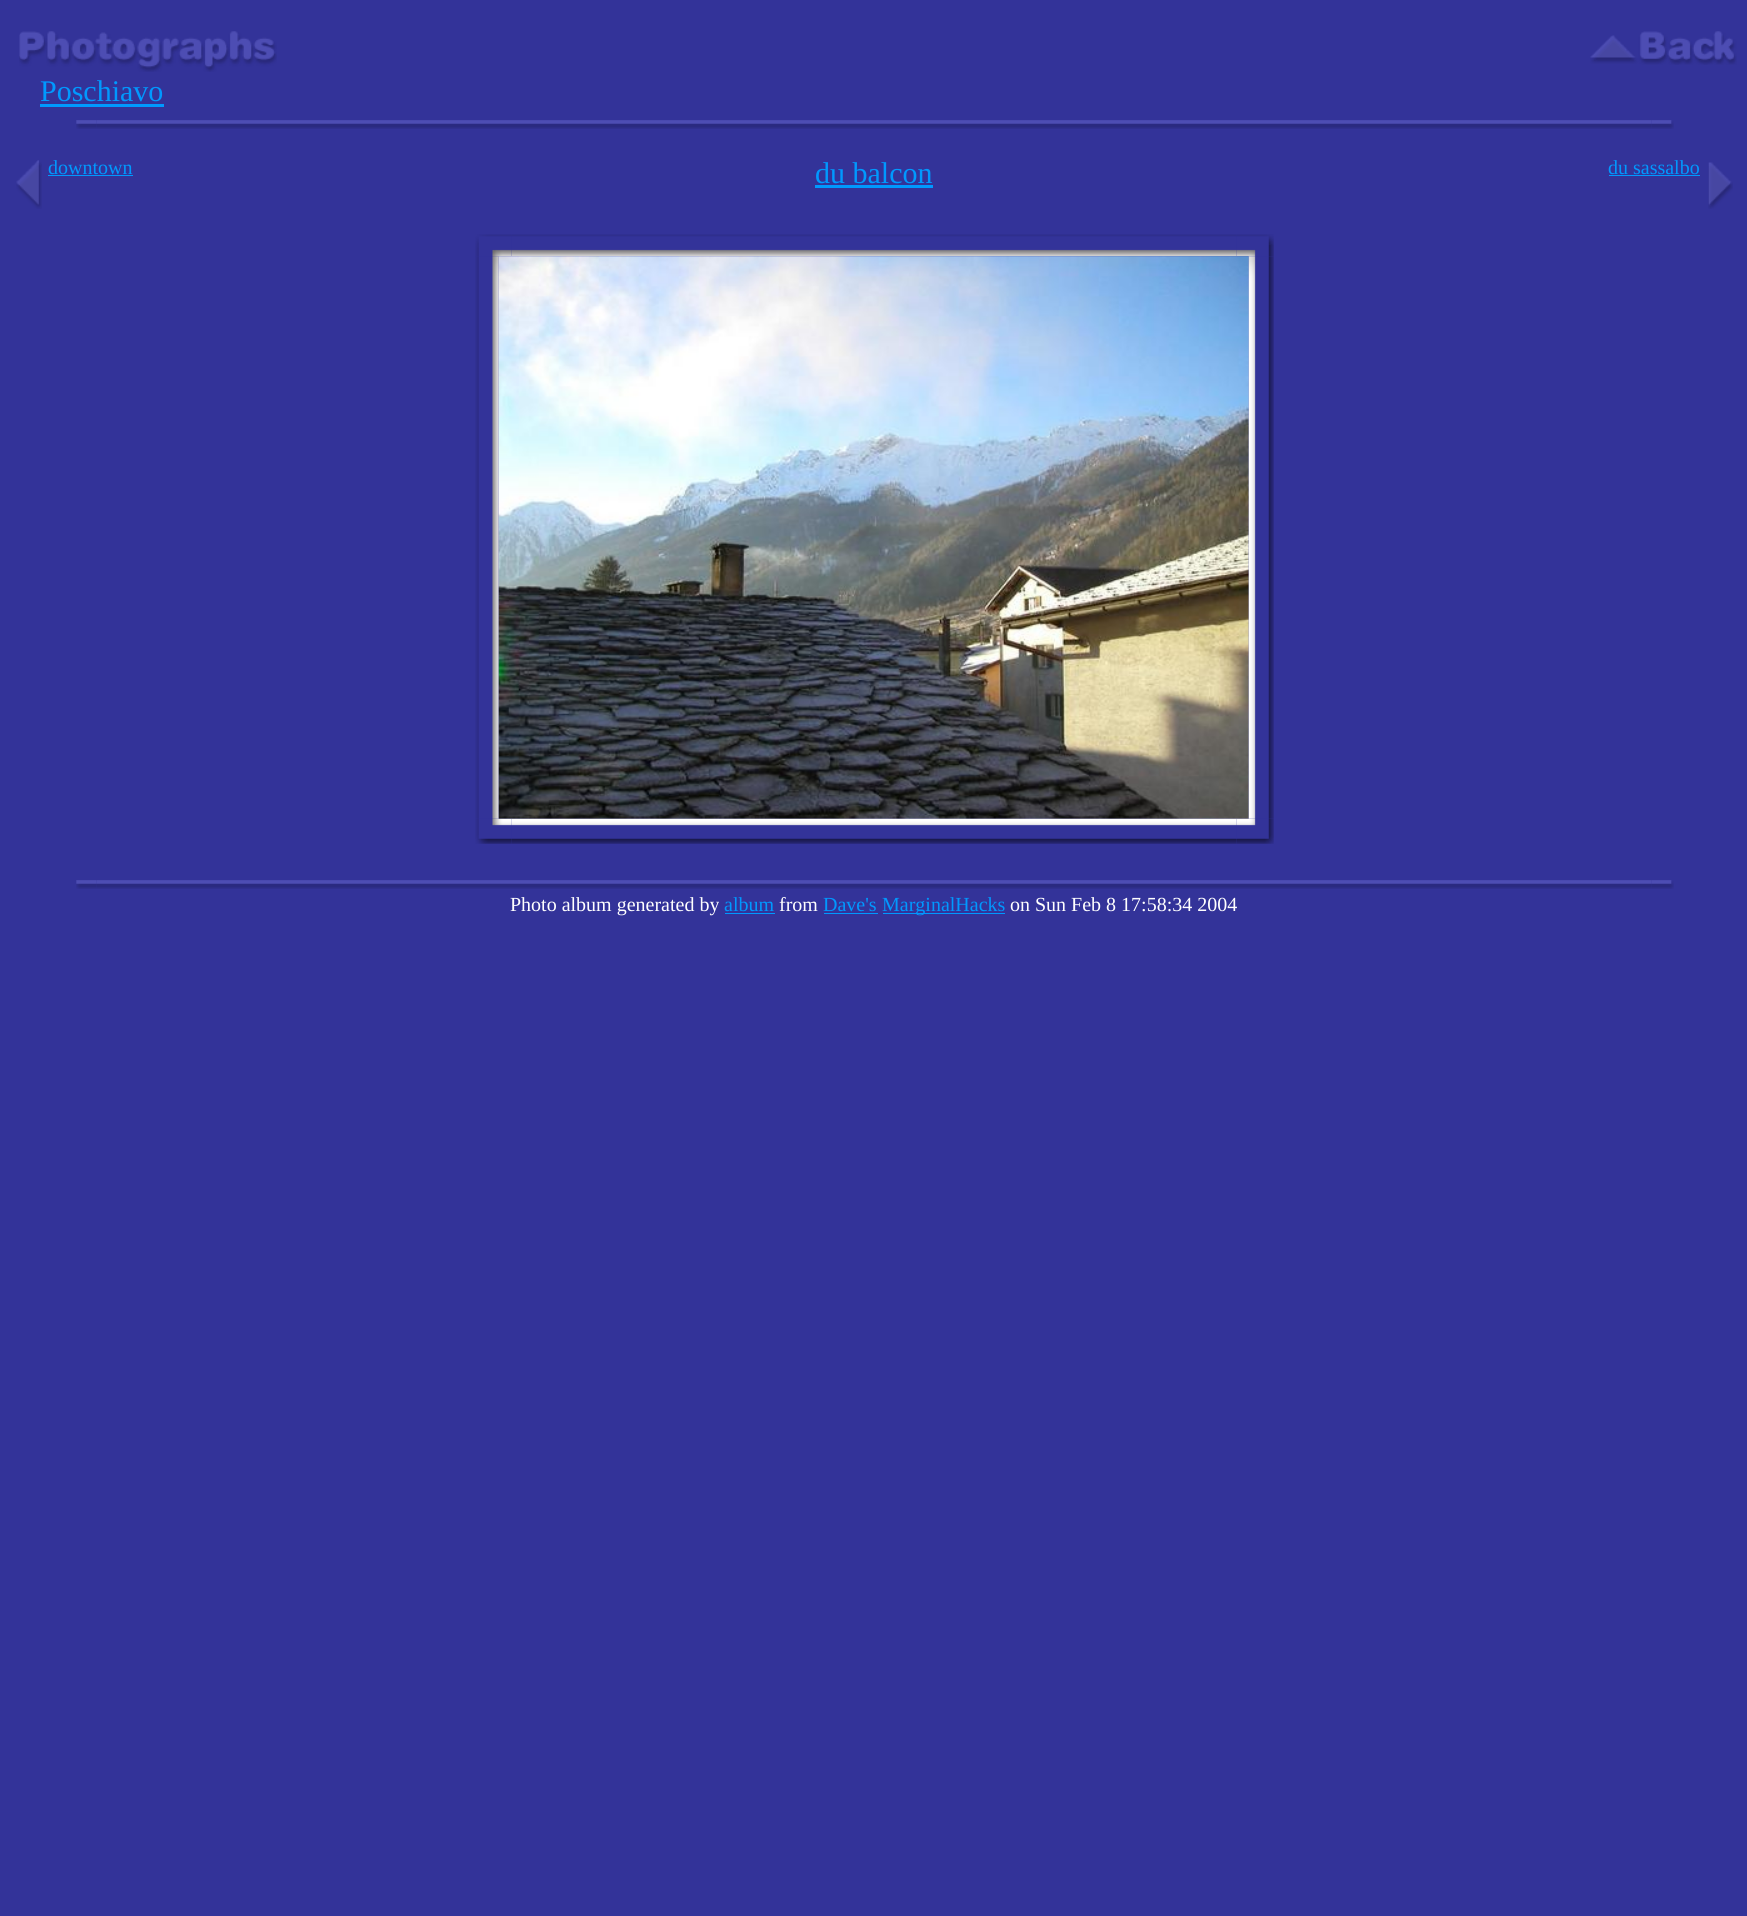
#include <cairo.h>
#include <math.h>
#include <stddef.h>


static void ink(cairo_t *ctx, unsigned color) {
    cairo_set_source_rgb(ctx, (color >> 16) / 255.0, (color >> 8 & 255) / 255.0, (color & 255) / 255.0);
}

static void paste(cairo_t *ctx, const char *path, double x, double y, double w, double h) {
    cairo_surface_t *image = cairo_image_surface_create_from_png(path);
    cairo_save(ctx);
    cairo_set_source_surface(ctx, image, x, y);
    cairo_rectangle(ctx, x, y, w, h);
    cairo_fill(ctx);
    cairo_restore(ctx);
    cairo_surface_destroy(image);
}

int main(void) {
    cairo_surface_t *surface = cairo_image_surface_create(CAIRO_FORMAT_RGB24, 1747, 1916);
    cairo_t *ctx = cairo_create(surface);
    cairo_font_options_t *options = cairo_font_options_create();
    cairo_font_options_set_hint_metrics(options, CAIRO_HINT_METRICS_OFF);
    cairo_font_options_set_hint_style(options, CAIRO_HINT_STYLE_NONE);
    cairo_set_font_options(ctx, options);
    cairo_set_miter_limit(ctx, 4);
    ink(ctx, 0x333399);
    cairo_paint(ctx);
    paste(ctx, "media/1.png", 1590, 31, 147, 34);
    paste(ctx, "media/2.png", 19, 31, 258, 41);
    cairo_select_font_face(ctx, "Liberation Serif", CAIRO_FONT_SLANT_NORMAL, CAIRO_FONT_WEIGHT_NORMAL);
    cairo_set_font_size(ctx, 30);
    ink(ctx, 0x0099FF);
    cairo_move_to(ctx, 40, 101);
    cairo_show_text(ctx, "Poschiavo");
    cairo_rectangle(ctx, 40, 104, 124, 3);
    cairo_fill(ctx);
    paste(ctx, "media/3.png", 76, 120, 21, 9);
    paste(ctx, "media/4.png", 96, 120, 1556, 9);
    paste(ctx, "media/5.png", 1651, 120, 23, 9);
    paste(ctx, "media/6.png", 16, 160, 26, 49);
    cairo_set_font_size(ctx, 20);
    cairo_move_to(ctx, 48, 174);
    cairo_show_text(ctx, "downtown");
    cairo_rectangle(ctx, 48, 175, 85, 1);
    cairo_fill(ctx);
    cairo_set_font_size(ctx, 30);
    cairo_move_to(ctx, 815, 183);
    cairo_show_text(ctx, "du balcon");
    cairo_rectangle(ctx, 815, 185, 118, 3);
    cairo_fill(ctx);
    cairo_set_font_size(ctx, 20);
    cairo_move_to(ctx, 1608, 174);
    cairo_show_text(ctx, "du sassalbo");
    cairo_rectangle(ctx, 1609, 175, 91, 1);
    cairo_fill(ctx);
    paste(ctx, "media/7.png", 1708, 162, 25, 47);
    paste(ctx, "media/8.png", 475, 234, 37, 23);
    paste(ctx, "media/9.png", 511, 234, 726, 23);
    paste(ctx, "media/10.png", 1236, 234, 38, 23);
    paste(ctx, "media/11.png", 475, 256, 24, 563);
    paste(ctx, "media/12.png", 498, 256, 751, 563);
    paste(ctx, "media/13.png", 1248, 256, 26, 563);
    paste(ctx, "media/14.png", 475, 818, 37, 26);
    paste(ctx, "media/15.png", 511, 818, 726, 26);
    paste(ctx, "media/16.png", 1236, 818, 38, 26);
    paste(ctx, "media/3.png", 76, 880, 21, 9);
    paste(ctx, "media/4.png", 96, 880, 1556, 9);
    paste(ctx, "media/5.png", 1651, 880, 23, 9);
    ink(ctx, 0xFFFFFF);
    cairo_move_to(ctx, 510, 911);
    cairo_show_text(ctx, "Photo album generated by");
    ink(ctx, 0x0099FF);
    cairo_move_to(ctx, 724, 911);
    cairo_show_text(ctx, "album");
    cairo_rectangle(ctx, 725, 913, 50, 1);
    cairo_fill(ctx);
    ink(ctx, 0xFFFFFF);
    cairo_move_to(ctx, 779, 911);
    cairo_show_text(ctx, "from");
    ink(ctx, 0x0099FF);
    cairo_move_to(ctx, 823, 911);
    cairo_show_text(ctx, "Dave's");
    cairo_rectangle(ctx, 824, 913, 54, 1);
    cairo_fill(ctx);
    cairo_rectangle(ctx, 883, 913, 122, 1);
    cairo_fill(ctx);
    cairo_move_to(ctx, 882, 911);
    cairo_show_text(ctx, "MarginalHacks");
    ink(ctx, 0xFFFFFF);
    cairo_move_to(ctx, 1010, 911);
    cairo_show_text(ctx, "on Sun Feb 8 17:58:34 2004");
    cairo_surface_write_to_png(surface, "image.png");
    cairo_font_options_destroy(options);
    cairo_destroy(ctx);
    cairo_surface_destroy(surface);
    return 0;
}
